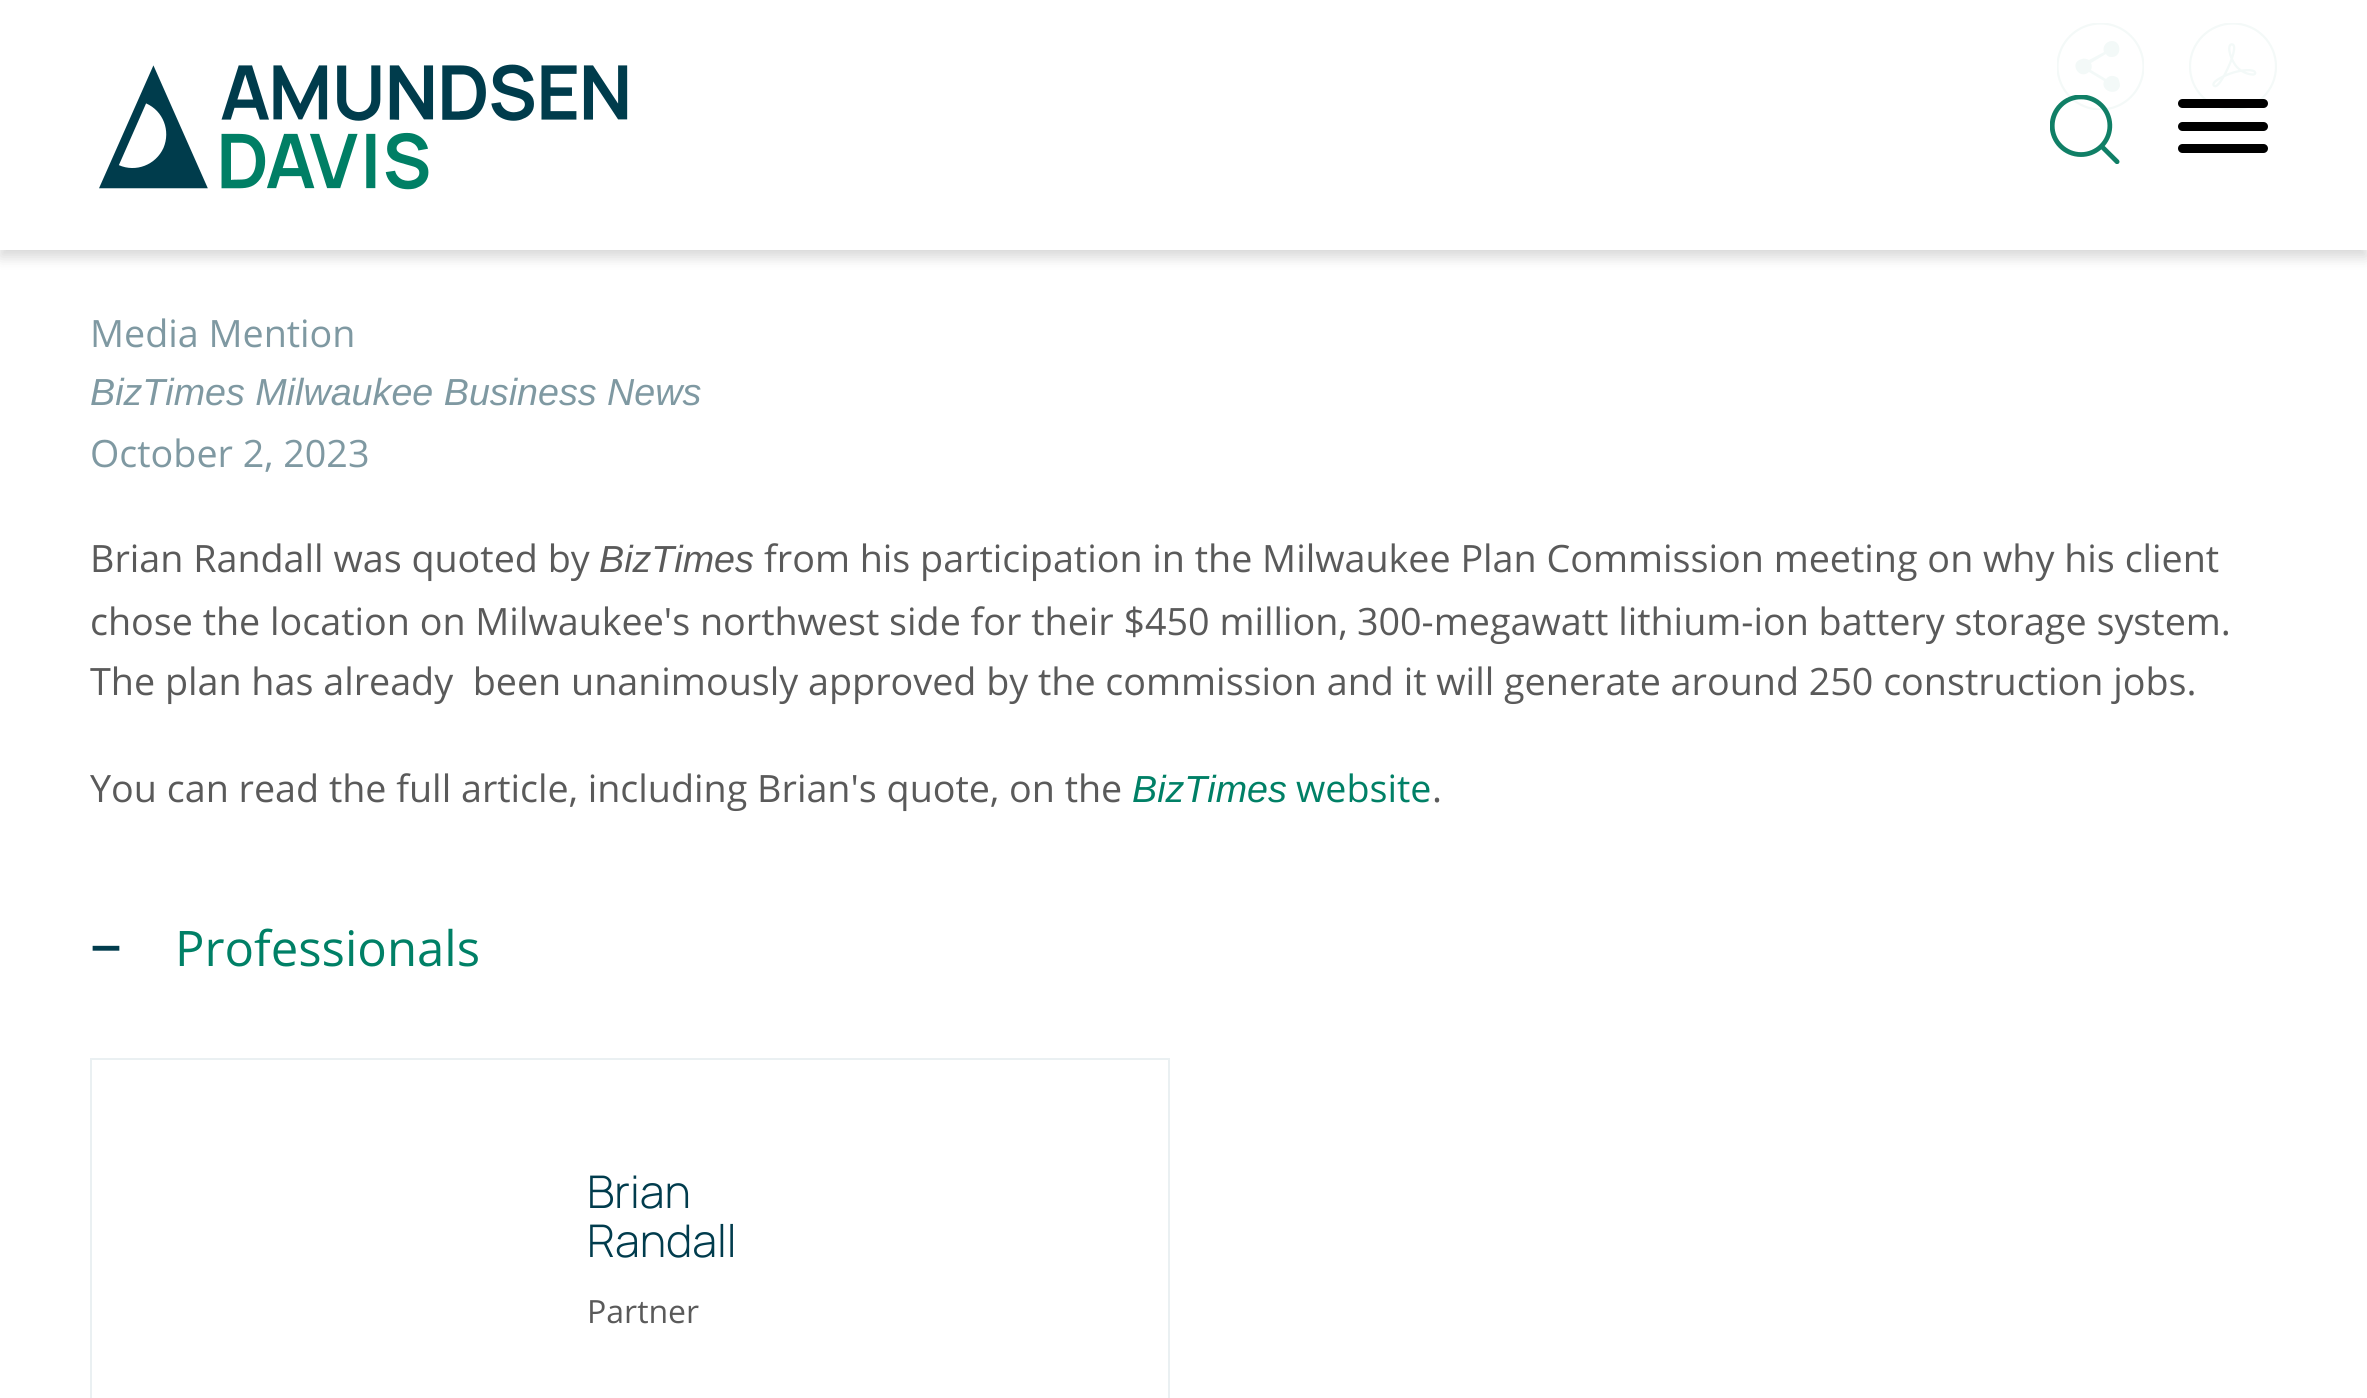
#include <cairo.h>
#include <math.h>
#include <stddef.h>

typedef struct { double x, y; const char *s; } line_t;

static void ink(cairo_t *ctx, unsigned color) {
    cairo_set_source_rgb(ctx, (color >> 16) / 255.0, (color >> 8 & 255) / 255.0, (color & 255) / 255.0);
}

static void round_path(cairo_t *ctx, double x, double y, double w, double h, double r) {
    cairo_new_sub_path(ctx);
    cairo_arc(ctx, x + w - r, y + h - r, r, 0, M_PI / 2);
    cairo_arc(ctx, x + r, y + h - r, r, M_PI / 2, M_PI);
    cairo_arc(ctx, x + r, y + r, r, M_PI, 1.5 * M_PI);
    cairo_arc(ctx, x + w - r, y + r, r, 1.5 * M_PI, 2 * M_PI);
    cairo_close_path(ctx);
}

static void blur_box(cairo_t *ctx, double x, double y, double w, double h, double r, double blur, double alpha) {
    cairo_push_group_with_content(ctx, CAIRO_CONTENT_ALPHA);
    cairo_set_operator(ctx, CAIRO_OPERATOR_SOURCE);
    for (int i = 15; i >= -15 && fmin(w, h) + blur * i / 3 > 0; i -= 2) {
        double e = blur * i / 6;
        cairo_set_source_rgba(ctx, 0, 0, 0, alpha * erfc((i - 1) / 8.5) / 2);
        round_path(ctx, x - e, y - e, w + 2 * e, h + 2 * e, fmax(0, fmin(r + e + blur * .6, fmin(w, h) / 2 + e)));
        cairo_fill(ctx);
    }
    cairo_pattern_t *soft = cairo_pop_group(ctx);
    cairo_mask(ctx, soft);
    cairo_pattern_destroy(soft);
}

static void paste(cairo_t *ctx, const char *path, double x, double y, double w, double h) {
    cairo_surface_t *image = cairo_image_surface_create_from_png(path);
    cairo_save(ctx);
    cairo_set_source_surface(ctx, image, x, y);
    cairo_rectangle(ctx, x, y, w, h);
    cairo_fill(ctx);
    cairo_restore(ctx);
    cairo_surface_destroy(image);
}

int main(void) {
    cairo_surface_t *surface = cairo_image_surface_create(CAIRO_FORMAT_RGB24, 2367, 1398);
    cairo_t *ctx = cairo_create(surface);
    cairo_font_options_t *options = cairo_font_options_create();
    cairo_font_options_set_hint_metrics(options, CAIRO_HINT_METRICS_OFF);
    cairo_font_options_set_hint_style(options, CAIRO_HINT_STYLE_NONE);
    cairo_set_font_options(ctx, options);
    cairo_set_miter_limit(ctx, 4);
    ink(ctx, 0xFFFFFF);
    cairo_paint(ctx);
    cairo_save(ctx);
    cairo_rectangle(ctx, 2057, 23, 87, 87);
    cairo_clip(ctx);
    cairo_arc(ctx, 2100.5, 66.5, 43, 0, 2 * M_PI);
    ink(ctx, 0x107F66);
    cairo_set_line_width(ctx, 2.2);
    cairo_stroke(ctx);
    cairo_restore(ctx);
    ink(ctx, 0x008066);
    cairo_new_path(ctx);
    cairo_move_to(ctx, 2112, 41);
    cairo_curve_to(ctx, 2106, 41, 2102, 47, 2104, 52);
    cairo_line_to(ctx, 2089, 60);
    cairo_curve_to(ctx, 2087, 59, 2084, 58, 2082, 59);
    cairo_curve_to(ctx, 2068, 62, 2079, 81, 2089, 72);
    cairo_line_to(ctx, 2104, 81);
    cairo_curve_to(ctx, 2100, 91, 2117, 97, 2120, 86);
    cairo_curve_to(ctx, 2120, 83, 2119, 80, 2118, 78);
    cairo_curve_to(ctx, 2114, 75, 2109, 75, 2106, 79);
    cairo_line_to(ctx, 2091, 70);
    cairo_curve_to(ctx, 2092, 68, 2092, 65, 2091, 63);
    cairo_line_to(ctx, 2106, 54);
    cairo_curve_to(ctx, 2107, 56, 2109, 57, 2111, 57);
    cairo_curve_to(ctx, 2122, 58, 2122, 41, 2112, 41);
    cairo_close_path(ctx);
    cairo_fill(ctx);
    paste(ctx, "media/3.png", 2189, 23, 88, 87);
    cairo_save(ctx);
    cairo_set_fill_rule(ctx, CAIRO_FILL_RULE_EVEN_ODD);
    cairo_new_path(ctx);
    cairo_move_to(ctx, 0, 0);
    cairo_line_to(ctx, 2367, 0);
    cairo_line_to(ctx, 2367, 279);
    cairo_line_to(ctx, 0, 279);
    cairo_close_path(ctx);
    cairo_move_to(ctx, 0, 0);
    cairo_line_to(ctx, 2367, 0);
    cairo_line_to(ctx, 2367, 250);
    cairo_line_to(ctx, 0, 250);
    cairo_close_path(ctx);
    cairo_clip(ctx);
    ink(ctx, 0x000000);
    blur_box(ctx, 0, 7, 2367, 250, 0, 7, 0.16);
    cairo_restore(ctx);
    cairo_set_source_rgba(ctx, 1, 1, 1, 0.95);
    cairo_rectangle(ctx, 0, 23, 2367, 227);
    cairo_fill(ctx);
    paste(ctx, "media/1.png", 99, 64, 529, 126);
    paste(ctx, "media/2.png", 2050, 95, 70, 69);
    ink(ctx, 0x000000);
    round_path(ctx, 2178, 99, 90, 9, 4.5);
    cairo_fill(ctx);
    round_path(ctx, 2178, 122, 90, 9, 4.5);
    cairo_fill(ctx);
    round_path(ctx, 2178, 144, 90, 9, 4.5);
    cairo_fill(ctx);
    cairo_select_font_face(ctx, "Open Sans", CAIRO_FONT_SLANT_NORMAL, CAIRO_FONT_WEIGHT_NORMAL);
    cairo_set_font_size(ctx, 37.67);
    ink(ctx, 0x7F99A2);
    cairo_move_to(ctx, 90, 347);
    cairo_show_text(ctx, "Media Mention");
    cairo_select_font_face(ctx, "Liberation Sans", CAIRO_FONT_SLANT_ITALIC, CAIRO_FONT_WEIGHT_NORMAL);
    cairo_move_to(ctx, 90, 405);
    cairo_show_text(ctx, "BizTimes Milwaukee Business News");
    cairo_select_font_face(ctx, "Open Sans", CAIRO_FONT_SLANT_NORMAL, CAIRO_FONT_WEIGHT_NORMAL);
    cairo_move_to(ctx, 90, 467);
    cairo_show_text(ctx, "October 2, 2023");
    ink(ctx, 0x5A5A5A);
    cairo_move_to(ctx, 90, 572);
    cairo_show_text(ctx, "Brian Randall was quoted by");
    cairo_select_font_face(ctx, "Liberation Sans", CAIRO_FONT_SLANT_ITALIC, CAIRO_FONT_WEIGHT_NORMAL);
    cairo_move_to(ctx, 599, 572);
    cairo_show_text(ctx, "BizTimes");
    cairo_select_font_face(ctx, "Open Sans", CAIRO_FONT_SLANT_NORMAL, CAIRO_FONT_WEIGHT_NORMAL);
    {
        static const line_t items[] = {
            {764, 572, "from his participation in the Milwaukee Plan Commission meeting on why his client"},
            {90, 635, "chose the location on Milwaukee's northwest side for their $450 million,"},
            {1357, 635, "300-megawatt lithium-ion battery storage system."},
            {90, 695, "The plan has already  been unanimously approved by the commission and it will generate around 250 construction jobs."},
            {90, 802, "You can read the full article, including Brian's quote, on the"},
        };
        for (size_t i = 0; i < sizeof items / sizeof *items; i++) {
            cairo_move_to(ctx, items[i].x, items[i].y);
            cairo_show_text(ctx, items[i].s);
        }
    }
    cairo_select_font_face(ctx, "Liberation Sans", CAIRO_FONT_SLANT_ITALIC, CAIRO_FONT_WEIGHT_NORMAL);
    ink(ctx, 0x008066);
    cairo_move_to(ctx, 1132, 802);
    cairo_show_text(ctx, "BizTimes");
    cairo_select_font_face(ctx, "Open Sans", CAIRO_FONT_SLANT_NORMAL, CAIRO_FONT_WEIGHT_NORMAL);
    cairo_move_to(ctx, 1296, 802);
    cairo_show_text(ctx, "website");
    ink(ctx, 0x5A5A5A);
    cairo_move_to(ctx, 1432, 802);
    cairo_show_text(ctx, ".");
    cairo_select_font_face(ctx, "Open Sans SemiBold", CAIRO_FONT_SLANT_NORMAL, CAIRO_FONT_WEIGHT_NORMAL);
    cairo_set_font_size(ctx, 56);
    ink(ctx, 0x013C4D);
    cairo_move_to(ctx, 90, 968);
    cairo_show_text(ctx, "−");
    cairo_select_font_face(ctx, "Open Sans", CAIRO_FONT_SLANT_NORMAL, CAIRO_FONT_WEIGHT_NORMAL);
    cairo_set_font_size(ctx, 49);
    ink(ctx, 0x008066);
    cairo_move_to(ctx, 175, 966);
    cairo_show_text(ctx, "Professionals");
    cairo_rectangle(ctx, 91, 1059, 1078, 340);
    ink(ctx, 0xEAF0F2);
    cairo_stroke(ctx);
    cairo_select_font_face(ctx, "Manrope Light", CAIRO_FONT_SLANT_NORMAL, CAIRO_FONT_WEIGHT_NORMAL);
    cairo_set_font_size(ctx, 45);
    ink(ctx, 0x013C4D);
    cairo_move_to(ctx, 587, 1208);
    cairo_show_text(ctx, "Brian");
    cairo_move_to(ctx, 587, 1257);
    cairo_show_text(ctx, "Randall");
    cairo_select_font_face(ctx, "Open Sans", CAIRO_FONT_SLANT_NORMAL, CAIRO_FONT_WEIGHT_NORMAL);
    cairo_set_font_size(ctx, 32);
    ink(ctx, 0x5A5A5A);
    cairo_move_to(ctx, 587, 1323);
    cairo_show_text(ctx, "Partner");
    cairo_surface_write_to_png(surface, "image.png");
    cairo_font_options_destroy(options);
    cairo_destroy(ctx);
    cairo_surface_destroy(surface);
    return 0;
}
